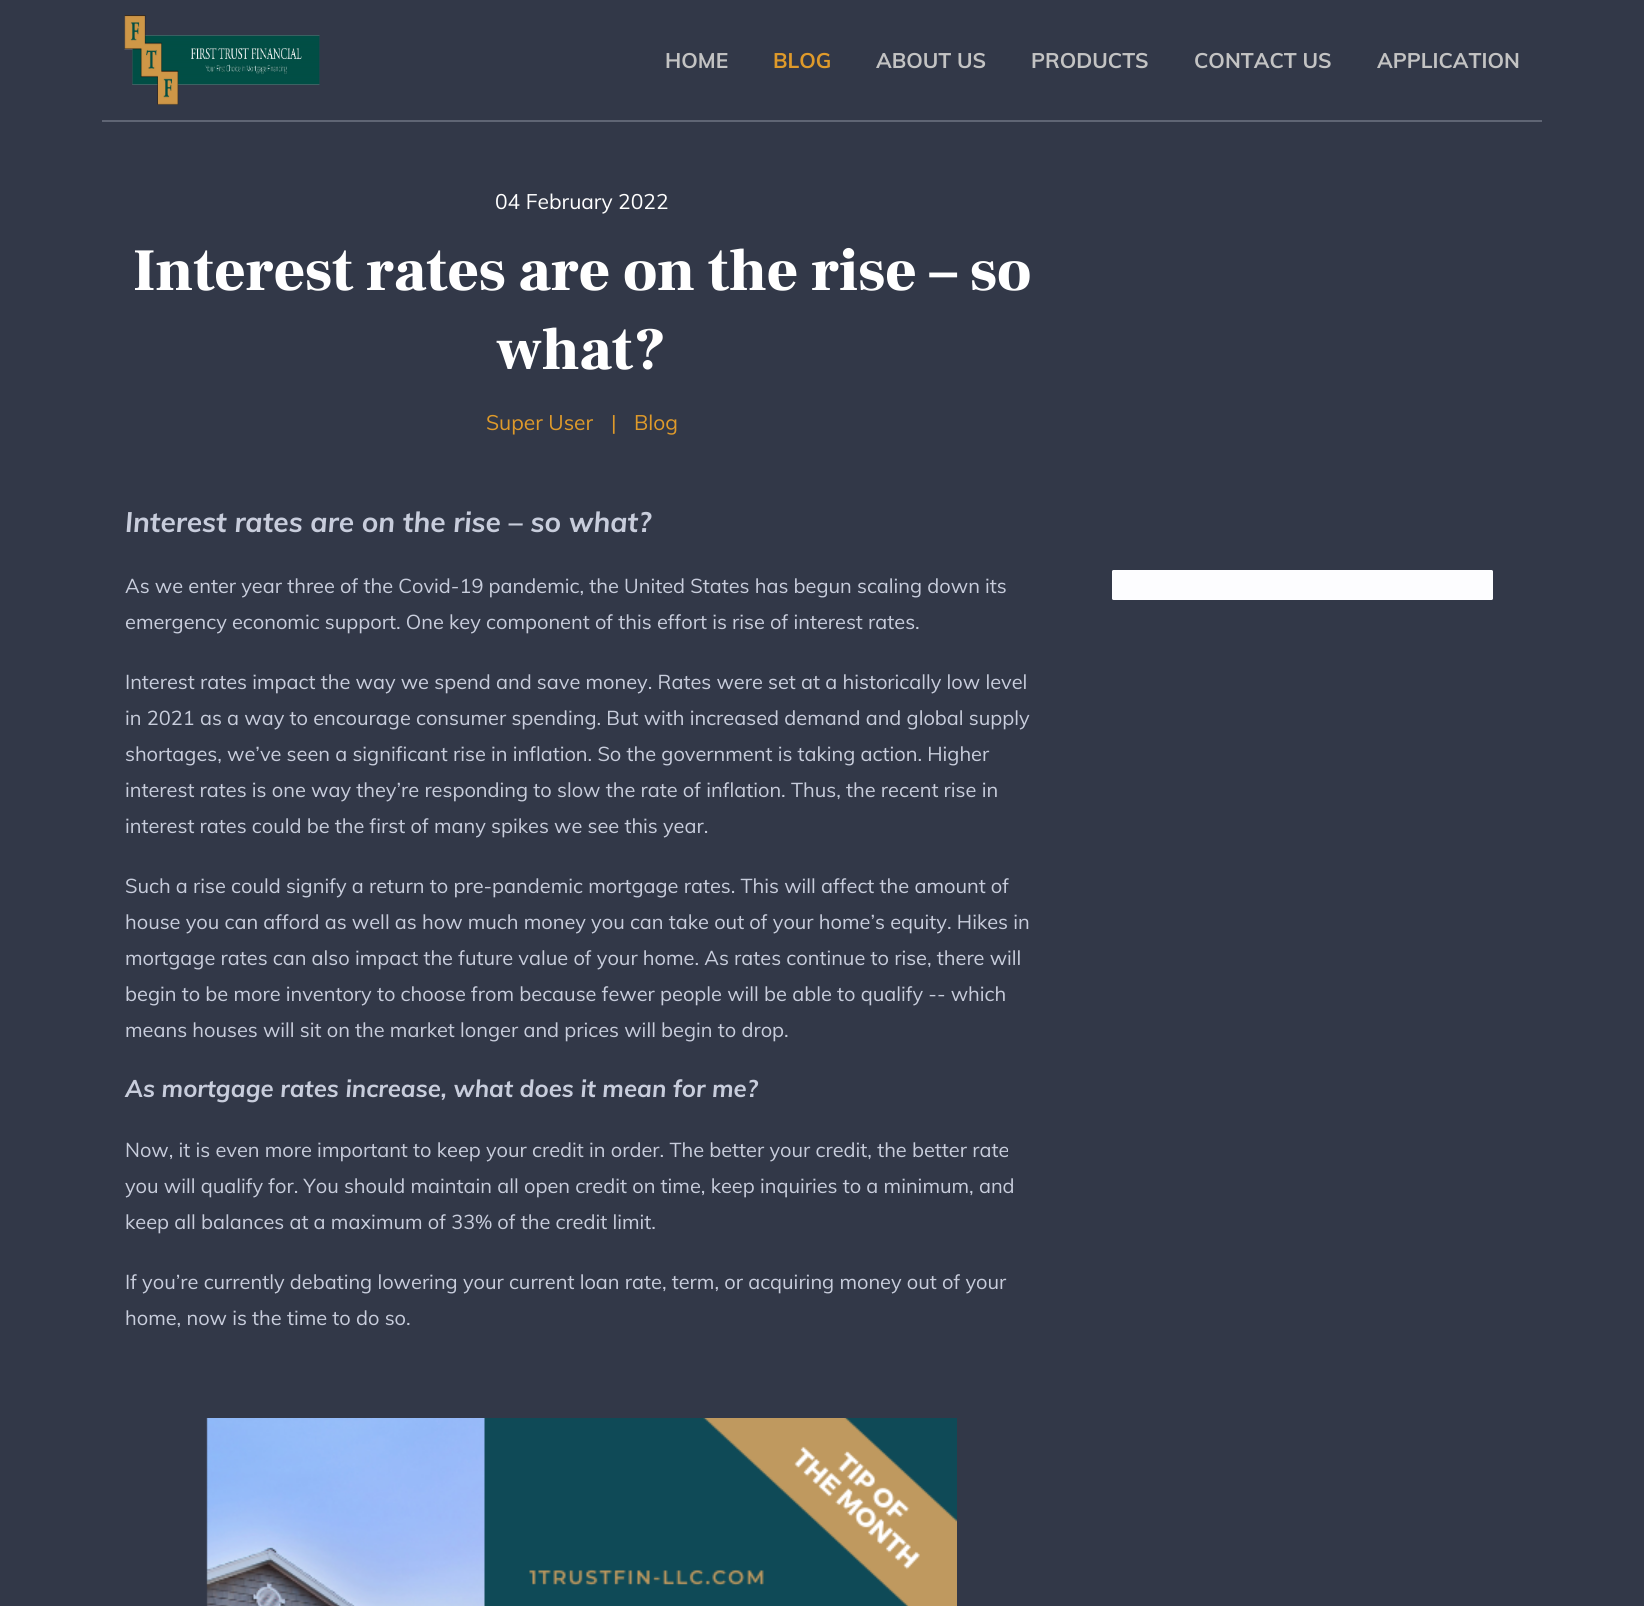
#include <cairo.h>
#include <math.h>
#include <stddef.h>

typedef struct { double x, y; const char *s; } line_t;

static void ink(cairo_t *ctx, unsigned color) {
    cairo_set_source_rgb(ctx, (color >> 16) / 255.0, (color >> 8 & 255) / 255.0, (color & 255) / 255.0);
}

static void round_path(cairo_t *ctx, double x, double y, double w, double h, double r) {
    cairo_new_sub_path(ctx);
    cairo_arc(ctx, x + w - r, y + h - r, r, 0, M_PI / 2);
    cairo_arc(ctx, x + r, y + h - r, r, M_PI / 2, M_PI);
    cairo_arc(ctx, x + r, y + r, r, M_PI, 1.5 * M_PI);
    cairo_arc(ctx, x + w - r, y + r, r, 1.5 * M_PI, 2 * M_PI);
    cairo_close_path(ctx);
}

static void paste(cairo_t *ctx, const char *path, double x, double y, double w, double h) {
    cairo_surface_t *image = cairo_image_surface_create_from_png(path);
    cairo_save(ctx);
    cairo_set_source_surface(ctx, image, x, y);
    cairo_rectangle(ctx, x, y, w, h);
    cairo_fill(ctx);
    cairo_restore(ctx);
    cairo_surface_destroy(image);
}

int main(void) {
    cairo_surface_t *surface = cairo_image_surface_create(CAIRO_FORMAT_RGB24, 1644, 1606);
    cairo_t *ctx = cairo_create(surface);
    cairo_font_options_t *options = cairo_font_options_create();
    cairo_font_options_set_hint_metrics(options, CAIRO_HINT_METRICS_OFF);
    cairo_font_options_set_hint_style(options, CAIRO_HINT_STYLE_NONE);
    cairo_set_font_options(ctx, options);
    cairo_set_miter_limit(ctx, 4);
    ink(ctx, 0x323848);
    cairo_paint(ctx);
    ink(ctx, 0x5F6574);
    cairo_rectangle(ctx, 102, 120, 1440, 2);
    cairo_fill(ctx);
    paste(ctx, "media/1.png", 124, 15, 196, 90);
    cairo_select_font_face(ctx, "Muli", CAIRO_FONT_SLANT_NORMAL, CAIRO_FONT_WEIGHT_BOLD);
    cairo_set_font_size(ctx, 21);
    ink(ctx, 0xC3C3C3);
    cairo_move_to(ctx, 665, 68);
    cairo_show_text(ctx, "HOME");
    ink(ctx, 0xDF9A2A);
    cairo_move_to(ctx, 773, 68);
    cairo_show_text(ctx, "BLOG");
    ink(ctx, 0xC3C3C3);
    {
        static const line_t items[] = {
            {876, 68, "ABOUT US"},
            {1031, 68, "PRODUCTS"},
            {1194, 68, "CONTACT US"},
            {1377, 68, "APPLICATION"},
        };
        for (size_t i = 0; i < sizeof items / sizeof *items; i++) {
            cairo_move_to(ctx, items[i].x, items[i].y);
            cairo_show_text(ctx, items[i].s);
        }
    }
    cairo_select_font_face(ctx, "Muli", CAIRO_FONT_SLANT_NORMAL, CAIRO_FONT_WEIGHT_NORMAL);
    ink(ctx, 0xFFFFFF);
    cairo_move_to(ctx, 495, 209);
    cairo_show_text(ctx, "04 February 2022");
    ink(ctx, 0xDF9A2A);
    {
        static const line_t items[] = {
            {486, 430, "Super User"},
            {611, 430, "|"},
            {634, 430, "Blog"},
        };
        for (size_t i = 0; i < sizeof items / sizeof *items; i++) {
            cairo_move_to(ctx, items[i].x, items[i].y);
            cairo_show_text(ctx, items[i].s);
        }
    }
    cairo_select_font_face(ctx, "Frank Ruhl Libre Black", CAIRO_FONT_SLANT_NORMAL, CAIRO_FONT_WEIGHT_NORMAL);
    cairo_set_font_size(ctx, 60);
    ink(ctx, 0xFFFFFF);
    cairo_move_to(ctx, 133, 290);
    cairo_show_text(ctx, "Interest rates are on the rise – so");
    cairo_move_to(ctx, 497, 369);
    cairo_show_text(ctx, "what?");
    cairo_select_font_face(ctx, "Muli", CAIRO_FONT_SLANT_ITALIC, CAIRO_FONT_WEIGHT_BOLD);
    cairo_set_font_size(ctx, 28);
    ink(ctx, 0xC8CDDC);
    cairo_move_to(ctx, 125, 532);
    cairo_show_text(ctx, "Interest rates are on the rise – so what?");
    cairo_select_font_face(ctx, "Muli", CAIRO_FONT_SLANT_NORMAL, CAIRO_FONT_WEIGHT_NORMAL);
    cairo_set_font_size(ctx, 20);
    {
        static const line_t items[] = {
            {125, 593, "As we enter year three of the Covid-19 pandemic, the United States has begun scaling down its"},
            {125, 629, "emergency economic support. One key component of this effort is rise of interest rates."},
            {125, 689, "Interest rates impact the way we spend and save money. Rates were set at a historically low level"},
            {125, 725, "in 2021 as a way to encourage consumer spending. But with increased demand and global supply"},
            {125, 761, "shortages, we’ve seen a significant rise in inflation. So the government is taking action. Higher"},
            {125, 797, "interest rates is one way they’re responding to slow the rate of inflation. Thus, the recent rise in"},
            {125, 833, "interest rates could be the first of many spikes we see this year."},
            {125, 893, "Such a rise could signify a return to pre-pandemic mortgage rates. This will affect the amount of"},
            {125, 929, "house you can afford as well as how much money you can take out of your home’s equity. Hikes in"},
            {125, 965, "mortgage rates can also impact the future value of your home. As rates continue to rise, there will"},
            {125, 1001, "begin to be more inventory to choose from because fewer people will be able to qualify -- which"},
            {125, 1037, "means houses will sit on the market longer and prices will begin to drop."},
        };
        for (size_t i = 0; i < sizeof items / sizeof *items; i++) {
            cairo_move_to(ctx, items[i].x, items[i].y);
            cairo_show_text(ctx, items[i].s);
        }
    }
    cairo_select_font_face(ctx, "Muli", CAIRO_FONT_SLANT_ITALIC, CAIRO_FONT_WEIGHT_BOLD);
    cairo_set_font_size(ctx, 24);
    cairo_move_to(ctx, 125, 1097);
    cairo_show_text(ctx, "As mortgage rates increase, what does it mean for me?");
    cairo_select_font_face(ctx, "Muli", CAIRO_FONT_SLANT_NORMAL, CAIRO_FONT_WEIGHT_NORMAL);
    cairo_set_font_size(ctx, 20);
    {
        static const line_t items[] = {
            {125, 1157, "Now, it is even more important to keep your credit in order. The better your credit, the better rate"},
            {125, 1193, "you will qualify for. You should maintain all open credit on time, keep inquiries to a minimum, and"},
            {125, 1229, "keep all balances at a maximum of 33% of the credit limit."},
            {125, 1289, "If you’re currently debating lowering your current loan rate, term, or acquiring money out of your"},
            {125, 1325, "home, now is the time to do so."},
        };
        for (size_t i = 0; i < sizeof items / sizeof *items; i++) {
            cairo_move_to(ctx, items[i].x, items[i].y);
            cairo_show_text(ctx, items[i].s);
        }
    }
    paste(ctx, "media/2.png", 206, 1418, 751, 188);
    ink(ctx, 0xFDFDFF);
    round_path(ctx, 1112, 570, 381, 30, 1.5);
    cairo_fill(ctx);
    cairo_surface_write_to_png(surface, "image.png");
    cairo_font_options_destroy(options);
    cairo_destroy(ctx);
    cairo_surface_destroy(surface);
    return 0;
}
